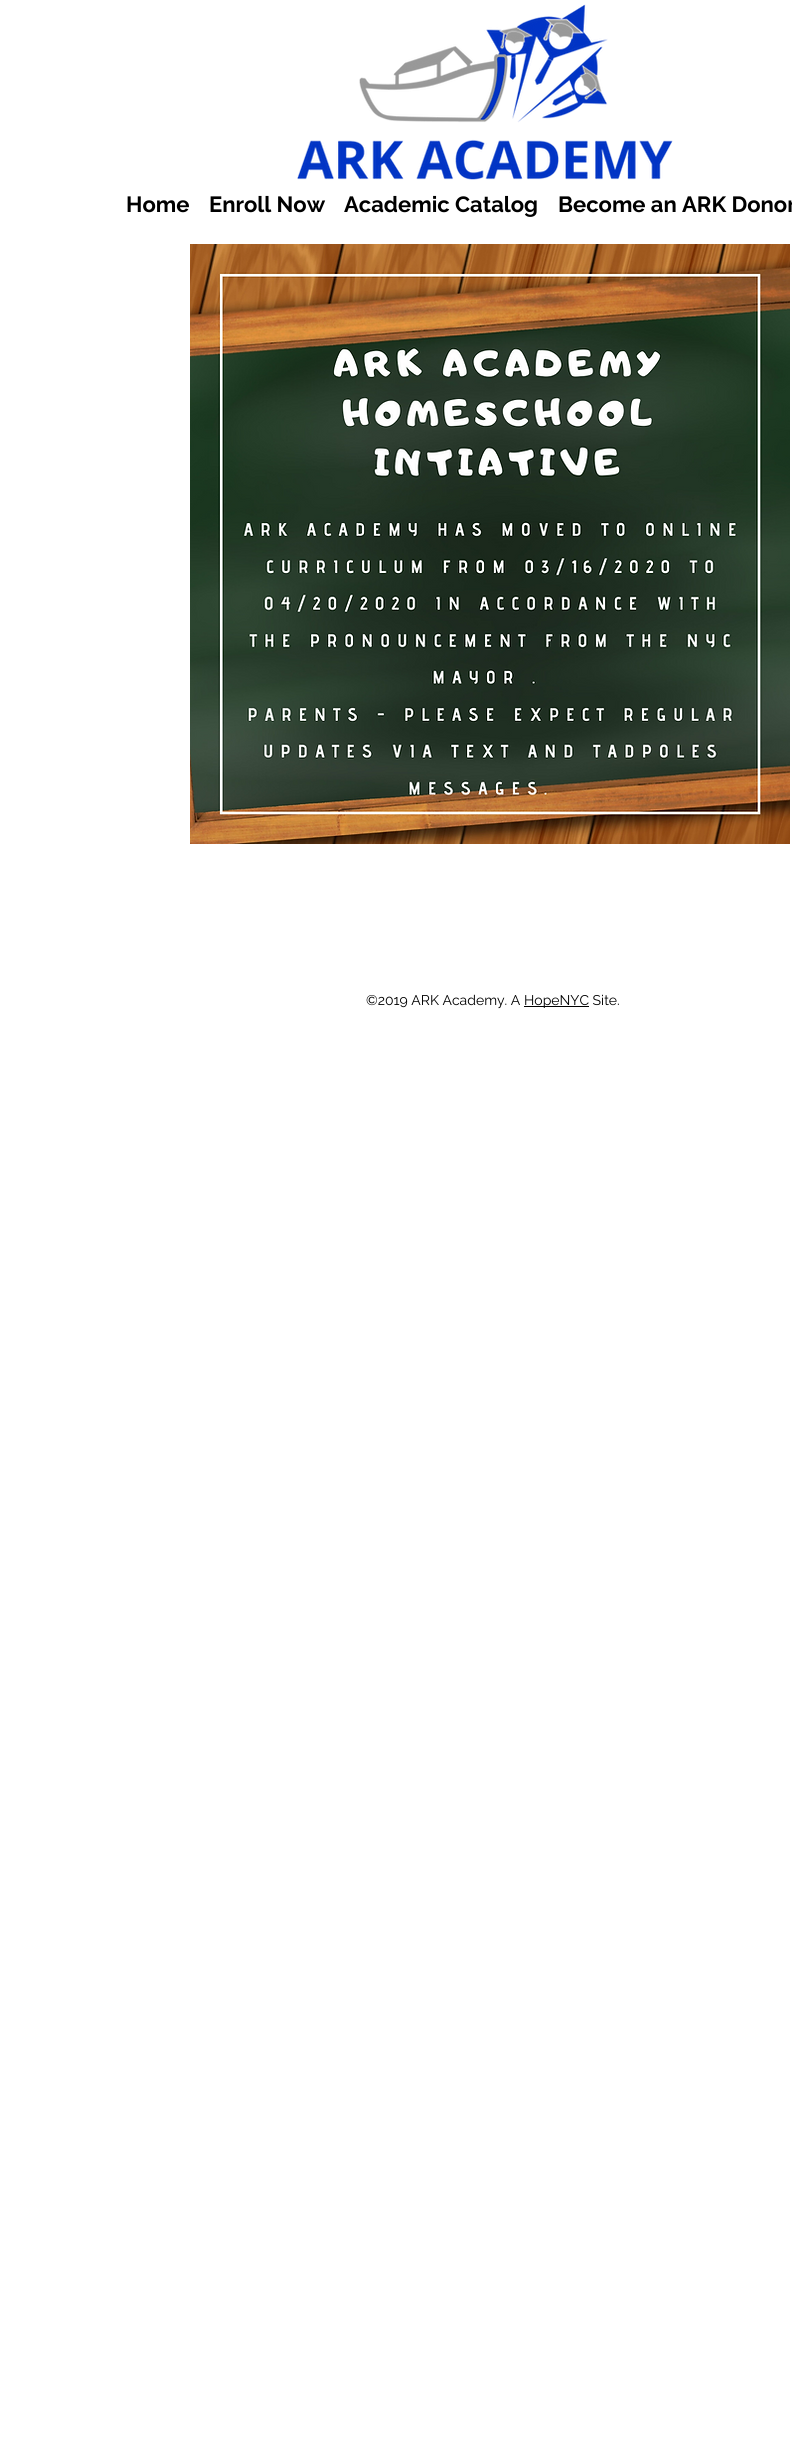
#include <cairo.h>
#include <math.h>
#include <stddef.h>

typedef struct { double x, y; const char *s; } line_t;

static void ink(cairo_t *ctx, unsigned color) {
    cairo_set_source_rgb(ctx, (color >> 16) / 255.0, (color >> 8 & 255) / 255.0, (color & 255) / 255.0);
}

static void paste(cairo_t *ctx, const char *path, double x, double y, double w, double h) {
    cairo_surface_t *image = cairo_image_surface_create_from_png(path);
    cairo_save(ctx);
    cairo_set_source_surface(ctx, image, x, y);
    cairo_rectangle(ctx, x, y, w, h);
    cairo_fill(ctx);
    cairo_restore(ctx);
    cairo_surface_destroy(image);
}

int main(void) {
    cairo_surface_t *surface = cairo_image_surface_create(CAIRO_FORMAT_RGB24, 792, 2454);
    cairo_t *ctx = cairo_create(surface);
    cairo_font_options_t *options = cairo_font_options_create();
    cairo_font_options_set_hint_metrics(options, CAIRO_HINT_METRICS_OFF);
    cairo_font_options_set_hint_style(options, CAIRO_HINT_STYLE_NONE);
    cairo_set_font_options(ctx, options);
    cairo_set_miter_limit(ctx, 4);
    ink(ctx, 0xFFFFFF);
    cairo_paint(ctx);
    paste(ctx, "media/1.png", 297, 4, 376, 176);
    cairo_select_font_face(ctx, "Raleway", CAIRO_FONT_SLANT_NORMAL, CAIRO_FONT_WEIGHT_BOLD);
    cairo_set_font_size(ctx, 22);
    ink(ctx, 0x000000);
    {
        static const line_t items[] = {
            {126, 212, "Home"},
            {209, 212, "Enroll Now"},
            {344, 212, "Academic Catalog"},
            {558, 212, "Become an ARK Donor"},
        };
        for (size_t i = 0; i < sizeof items / sizeof *items; i++) {
            cairo_move_to(ctx, items[i].x, items[i].y);
            cairo_show_text(ctx, items[i].s);
        }
    }
    paste(ctx, "media/2.png", 190, 244, 600, 600);
    cairo_select_font_face(ctx, "Raleway", CAIRO_FONT_SLANT_NORMAL, CAIRO_FONT_WEIGHT_NORMAL);
    cairo_set_font_size(ctx, 14);
    cairo_move_to(ctx, 366, 1005);
    cairo_show_text(ctx, "©2019 ARK Academy. A");
    cairo_rectangle(ctx, 524, 1006, 65, 1);
    cairo_fill(ctx);
    cairo_move_to(ctx, 524, 1005);
    cairo_show_text(ctx, "HopeNYC Site.");
    cairo_surface_write_to_png(surface, "image.png");
    cairo_font_options_destroy(options);
    cairo_destroy(ctx);
    cairo_surface_destroy(surface);
    return 0;
}
